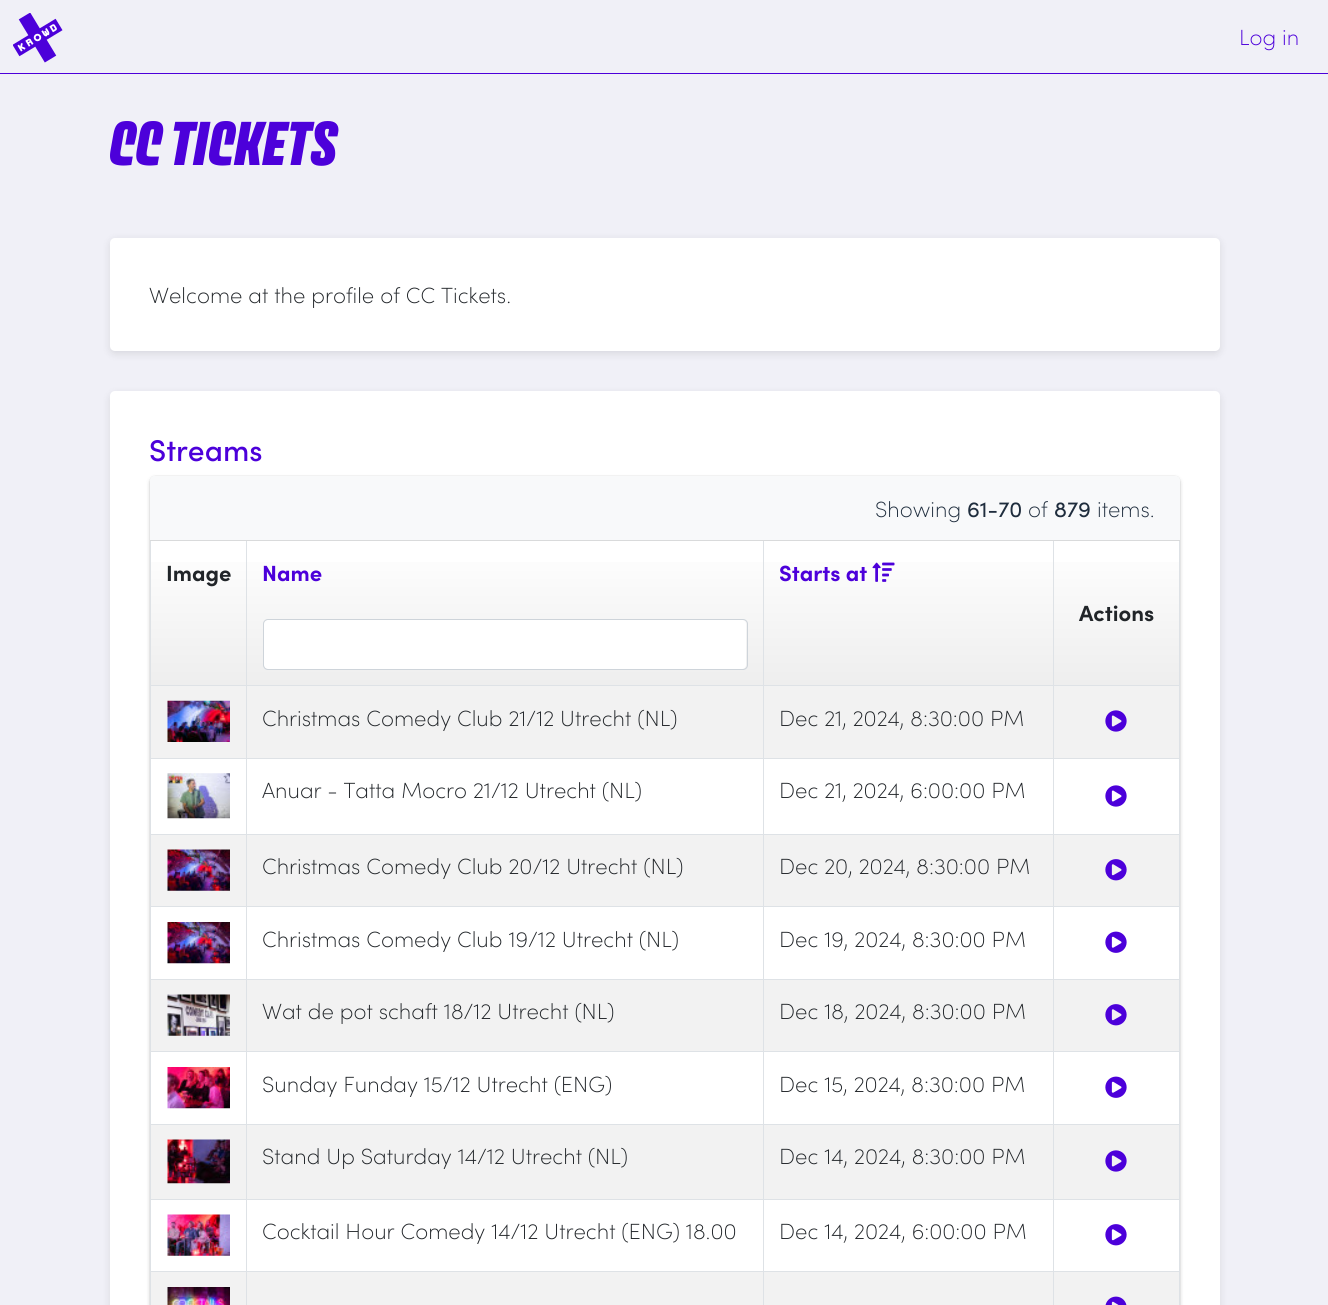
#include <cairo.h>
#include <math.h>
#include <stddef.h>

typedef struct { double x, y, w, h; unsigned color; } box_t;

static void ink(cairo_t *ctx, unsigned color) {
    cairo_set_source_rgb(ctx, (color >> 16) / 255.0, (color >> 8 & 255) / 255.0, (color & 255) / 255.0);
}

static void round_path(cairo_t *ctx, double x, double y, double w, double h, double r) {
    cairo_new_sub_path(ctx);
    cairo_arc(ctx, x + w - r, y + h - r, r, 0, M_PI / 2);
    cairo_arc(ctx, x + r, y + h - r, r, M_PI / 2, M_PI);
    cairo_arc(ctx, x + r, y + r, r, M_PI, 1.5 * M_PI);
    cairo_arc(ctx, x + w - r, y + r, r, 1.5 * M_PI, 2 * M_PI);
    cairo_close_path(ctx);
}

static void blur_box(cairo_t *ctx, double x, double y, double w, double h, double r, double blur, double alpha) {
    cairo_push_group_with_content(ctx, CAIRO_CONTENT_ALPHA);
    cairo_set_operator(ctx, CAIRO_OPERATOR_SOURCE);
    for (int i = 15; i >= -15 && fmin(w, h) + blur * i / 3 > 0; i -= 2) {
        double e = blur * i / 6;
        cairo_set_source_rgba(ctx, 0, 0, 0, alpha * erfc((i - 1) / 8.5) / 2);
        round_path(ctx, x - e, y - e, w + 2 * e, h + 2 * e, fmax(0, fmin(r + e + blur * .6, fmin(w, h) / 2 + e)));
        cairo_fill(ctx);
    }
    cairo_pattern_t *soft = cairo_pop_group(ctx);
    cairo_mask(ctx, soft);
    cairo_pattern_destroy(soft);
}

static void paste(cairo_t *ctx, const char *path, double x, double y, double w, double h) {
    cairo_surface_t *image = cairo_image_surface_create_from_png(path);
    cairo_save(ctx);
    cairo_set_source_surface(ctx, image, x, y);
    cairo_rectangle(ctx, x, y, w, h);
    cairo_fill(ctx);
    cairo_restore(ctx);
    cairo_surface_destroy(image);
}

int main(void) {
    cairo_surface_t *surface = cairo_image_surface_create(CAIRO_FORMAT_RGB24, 1328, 1305);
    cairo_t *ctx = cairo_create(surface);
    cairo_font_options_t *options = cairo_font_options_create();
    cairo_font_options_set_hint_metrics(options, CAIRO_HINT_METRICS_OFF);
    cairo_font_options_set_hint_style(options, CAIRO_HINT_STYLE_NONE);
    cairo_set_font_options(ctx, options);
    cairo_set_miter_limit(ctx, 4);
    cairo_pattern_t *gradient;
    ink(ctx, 0xF0F0F7);
    cairo_paint(ctx);
    ink(ctx, 0x4C00DA);
    cairo_rectangle(ctx, 0, 73, 1328, 1);
    cairo_fill(ctx);
    paste(ctx, "media/1.png", 13, 13, 50, 50);
    cairo_select_font_face(ctx, "Sofia ExtraLight", CAIRO_FONT_SLANT_NORMAL, CAIRO_FONT_WEIGHT_NORMAL);
    cairo_set_font_size(ctx, 22);
    cairo_move_to(ctx, 1239, 45);
    cairo_show_text(ctx, "Log in");
    cairo_select_font_face(ctx, "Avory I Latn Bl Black", CAIRO_FONT_SLANT_ITALIC, CAIRO_FONT_WEIGHT_NORMAL);
    cairo_set_font_size(ctx, 55);
    cairo_move_to(ctx, 109, 165);
    cairo_show_text(ctx, "CC TICKETS");
    ink(ctx, 0x000000);
    blur_box(ctx, 110, 240, 1110, 114, 5, 4, 0.1);
    ink(ctx, 0xFFFFFF);
    round_path(ctx, 110, 238, 1110, 113, 5);
    cairo_fill(ctx);
    cairo_select_font_face(ctx, "Sofia ExtraLight", CAIRO_FONT_SLANT_NORMAL, CAIRO_FONT_WEIGHT_NORMAL);
    cairo_set_font_size(ctx, 22);
    ink(ctx, 0x212529);
    cairo_move_to(ctx, 149, 303);
    cairo_show_text(ctx, "Welcome at the profile of CC Tickets.");
    ink(ctx, 0x000000);
    blur_box(ctx, 110, 394, 1110, 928, 5, 4, 0.1);
    ink(ctx, 0xFFFFFF);
    round_path(ctx, 110, 391, 1110, 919, 5);
    cairo_fill(ctx);
    cairo_select_font_face(ctx, "Sofia Medium", CAIRO_FONT_SLANT_NORMAL, CAIRO_FONT_WEIGHT_NORMAL);
    cairo_set_font_size(ctx, 30);
    ink(ctx, 0x4C00DA);
    cairo_move_to(ctx, 149, 461);
    cairo_show_text(ctx, "Streams");
    ink(ctx, 0x000000);
    blur_box(ctx, 150, 478, 1030, 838, 5, 2, 0.2);
    blur_box(ctx, 150, 476, 1030, 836, 5, 0.5, 0.12);
    ink(ctx, 0xFFFFFF);
    round_path(ctx, 150, 476, 1030, 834, 5);
    cairo_fill(ctx);
    ink(ctx, 0xF8F9FA);
    cairo_new_path(ctx);
    cairo_move_to(ctx, 155, 476);
    cairo_line_to(ctx, 1175, 476);
    cairo_curve_to(ctx, 1178, 476, 1180, 478, 1180, 481);
    cairo_line_to(ctx, 1180, 541);
    cairo_line_to(ctx, 150, 541);
    cairo_line_to(ctx, 150, 481);
    cairo_curve_to(ctx, 150, 478, 152, 476, 155, 476);
    cairo_close_path(ctx);
    cairo_fill(ctx);
    ink(ctx, 0xD9DADB);
    cairo_rectangle(ctx, 150, 540, 1030, 1);
    cairo_fill(ctx);
    cairo_select_font_face(ctx, "Sofia ExtraLight", CAIRO_FONT_SLANT_NORMAL, CAIRO_FONT_WEIGHT_NORMAL);
    cairo_set_font_size(ctx, 22);
    ink(ctx, 0x1F2D3D);
    cairo_move_to(ctx, 875, 517);
    cairo_show_text(ctx, "Showing");
    cairo_select_font_face(ctx, "Sofia", CAIRO_FONT_SLANT_NORMAL, CAIRO_FONT_WEIGHT_NORMAL);
    cairo_move_to(ctx, 967, 517);
    cairo_show_text(ctx, "61-70");
    cairo_select_font_face(ctx, "Sofia ExtraLight", CAIRO_FONT_SLANT_NORMAL, CAIRO_FONT_WEIGHT_NORMAL);
    cairo_move_to(ctx, 1028, 517);
    cairo_show_text(ctx, "of");
    cairo_select_font_face(ctx, "Sofia", CAIRO_FONT_SLANT_NORMAL, CAIRO_FONT_WEIGHT_NORMAL);
    cairo_move_to(ctx, 1054, 517);
    cairo_show_text(ctx, "879");
    cairo_select_font_face(ctx, "Sofia ExtraLight", CAIRO_FONT_SLANT_NORMAL, CAIRO_FONT_WEIGHT_NORMAL);
    cairo_move_to(ctx, 1097, 517);
    cairo_show_text(ctx, "items.");
    gradient = cairo_pattern_create_linear(664, 541, 664, 685);
    cairo_pattern_add_color_stop_rgba(gradient, 0, 1, 1, 1, 1);
    cairo_pattern_add_color_stop_rgba(gradient, 1, 0.933, 0.933, 0.933, 1);
    cairo_set_source(ctx, gradient);
    cairo_pattern_destroy(gradient);
    cairo_rectangle(ctx, 151, 562, 1028, 123);
    cairo_fill(ctx);
    {
        static const box_t items[] = {
            {1053, 685, 127, 1, 0xDEE2E6},
            {151, 686, 1028, 72, 0xF2F2F2},
            {1053, 758, 127, 1, 0xDEE2E6},
            {1053, 834, 127, 1, 0xDEE2E6},
            {151, 835, 1028, 71, 0xF2F2F2},
            {1053, 906, 127, 1, 0xDEE2E6},
            {1053, 979, 127, 1, 0xDEE2E6},
            {151, 980, 1028, 71, 0xF2F2F2},
            {1053, 1051, 127, 1, 0xDEE2E6},
            {1053, 1124, 127, 1, 0xDEE2E6},
            {151, 1125, 1028, 74, 0xF2F2F2},
            {1053, 1199, 127, 1, 0xDEE2E6},
            {151, 1272, 1028, 33, 0xF2F2F2},
            {1053, 1271, 127, 1, 0xDEE2E6},
            {1053, 1271, 1, 34, 0xDEE2E6},
            {763, 1271, 291, 1, 0xDEE2E6},
            {1053, 1199, 1, 74, 0xDEE2E6},
            {763, 1199, 291, 1, 0xDEE2E6},
            {1053, 1124, 1, 76, 0xDEE2E6},
            {763, 1124, 291, 1, 0xDEE2E6},
            {1053, 1051, 1, 74, 0xDEE2E6},
            {763, 1051, 291, 1, 0xDEE2E6},
            {1053, 979, 1, 74, 0xDEE2E6},
            {763, 979, 291, 1, 0xDEE2E6},
            {1053, 906, 1, 74, 0xDEE2E6},
            {763, 906, 291, 1, 0xDEE2E6},
            {1053, 834, 1, 74, 0xDEE2E6},
            {763, 834, 291, 1, 0xDEE2E6},
            {1053, 758, 1, 77, 0xDEE2E6},
            {763, 758, 291, 1, 0xDEE2E6},
            {1053, 685, 1, 74, 0xDEE2E6},
            {763, 685, 291, 1, 0xDEE2E6},
            {763, 1271, 1, 34, 0xDEE2E6},
            {246, 1271, 518, 1, 0xDEE2E6},
            {763, 1199, 1, 74, 0xDEE2E6},
            {246, 1199, 518, 1, 0xDEE2E6},
            {763, 1124, 1, 76, 0xDEE2E6},
            {246, 1124, 518, 1, 0xDEE2E6},
            {763, 1051, 1, 74, 0xDEE2E6},
            {246, 1051, 518, 1, 0xDEE2E6},
            {763, 979, 1, 74, 0xDEE2E6},
            {246, 979, 518, 1, 0xDEE2E6},
            {763, 906, 1, 74, 0xDEE2E6},
            {246, 906, 518, 1, 0xDEE2E6},
            {763, 834, 1, 74, 0xDEE2E6},
            {246, 834, 518, 1, 0xDEE2E6},
            {763, 758, 1, 77, 0xDEE2E6},
            {246, 758, 518, 1, 0xDEE2E6},
            {763, 685, 1, 74, 0xDEE2E6},
            {246, 685, 518, 1, 0xDEE2E6},
            {246, 1271, 1, 34, 0xDEE2E6},
            {150, 1271, 98, 1, 0xDEE2E6},
            {246, 1199, 1, 74, 0xDEE2E6},
            {150, 1199, 98, 1, 0xDEE2E6},
            {246, 1124, 1, 76, 0xDEE2E6},
            {150, 1124, 98, 1, 0xDEE2E6},
            {246, 1051, 1, 74, 0xDEE2E6},
            {150, 1051, 98, 1, 0xDEE2E6},
            {246, 979, 1, 74, 0xDEE2E6},
            {150, 979, 98, 1, 0xDEE2E6},
            {246, 906, 1, 74, 0xDEE2E6},
            {150, 906, 98, 1, 0xDEE2E6},
            {246, 834, 1, 74, 0xDEE2E6},
            {150, 834, 98, 1, 0xDEE2E6},
            {246, 758, 1, 77, 0xDEE2E6},
            {150, 758, 98, 1, 0xDEE2E6},
            {246, 685, 1, 74, 0xDEE2E6},
            {150, 685, 98, 1, 0xDEE2E6},
            {246, 541, 1, 145, 0xDEE2E6},
        };
        for (size_t i = 0; i < sizeof items / sizeof *items; i++) {
            ink(ctx, items[i].color);
            cairo_rectangle(ctx, items[i].x, items[i].y, items[i].w, items[i].h);
            cairo_fill(ctx);
        }
    }
    ink(ctx, 0xFFFFFF);
    round_path(ctx, 264, 620, 482, 49, 4);
    cairo_fill(ctx);
    round_path(ctx, 263.5, 619.5, 484, 50, 4.5);
    ink(ctx, 0xCED4DA);
    cairo_set_line_width(ctx, 1);
    cairo_stroke(ctx);
    ink(ctx, 0xDEE2E6);
    cairo_rectangle(ctx, 763, 541, 1, 145);
    cairo_fill(ctx);
    cairo_select_font_face(ctx, "Sofia", CAIRO_FONT_SLANT_NORMAL, CAIRO_FONT_WEIGHT_BOLD);
    ink(ctx, 0x212529);
    cairo_move_to(ctx, 166, 581);
    cairo_show_text(ctx, "Image");
    ink(ctx, 0x4C00DA);
    cairo_move_to(ctx, 262, 581);
    cairo_show_text(ctx, "Name");
    cairo_move_to(ctx, 779, 581);
    cairo_show_text(ctx, "Starts at");
    paste(ctx, "media/2.png", 872, 562, 23, 20);
    ink(ctx, 0xDEE2E6);
    cairo_rectangle(ctx, 1053, 541, 1, 145);
    cairo_fill(ctx);
    ink(ctx, 0x212529);
    cairo_move_to(ctx, 1079, 621);
    cairo_show_text(ctx, "Actions");
    {
        static const box_t items[] = {
            {150, 1271, 1, 34, 0xDEE2E6},
            {150, 1199, 1, 74, 0xDEE2E6},
            {150, 1124, 1, 76, 0xDEE2E6},
            {150, 1051, 1, 74, 0xDEE2E6},
            {150, 979, 1, 74, 0xDEE2E6},
            {150, 906, 1, 74, 0xDEE2E6},
            {150, 834, 1, 74, 0xDEE2E6},
            {150, 758, 1, 77, 0xDEE2E6},
            {150, 541, 1, 218, 0xDEE2E6},
        };
        for (size_t i = 0; i < sizeof items / sizeof *items; i++) {
            ink(ctx, items[i].color);
            cairo_rectangle(ctx, items[i].x, items[i].y, items[i].w, items[i].h);
            cairo_fill(ctx);
        }
    }
    paste(ctx, "media/3.png", 167, 700, 63, 42);
    cairo_select_font_face(ctx, "Sofia ExtraLight", CAIRO_FONT_SLANT_NORMAL, CAIRO_FONT_WEIGHT_NORMAL);
    ink(ctx, 0x212529);
    cairo_move_to(ctx, 262, 726);
    cairo_show_text(ctx, "Christmas Comedy Club 21/12 Utrecht (NL)");
    cairo_move_to(ctx, 779, 726);
    cairo_show_text(ctx, "Dec 21, 2024, 8:30:00 PM");
    {
        static const box_t items[] = {
            {1179, 1271, 1, 34, 0xDEE2E6},
            {1179, 1199, 1, 74, 0xDEE2E6},
            {1179, 1124, 1, 76, 0xDEE2E6},
            {1179, 1051, 1, 74, 0xDEE2E6},
            {1179, 979, 1, 74, 0xDEE2E6},
            {1179, 906, 1, 74, 0xDEE2E6},
            {1179, 834, 1, 74, 0xDEE2E6},
            {1179, 758, 1, 77, 0xDEE2E6},
            {1179, 541, 1, 218, 0xDEE2E6},
        };
        for (size_t i = 0; i < sizeof items / sizeof *items; i++) {
            ink(ctx, items[i].color);
            cairo_rectangle(ctx, items[i].x, items[i].y, items[i].w, items[i].h);
            cairo_fill(ctx);
        }
    }
    paste(ctx, "media/4.png", 1105, 710, 22, 22);
    paste(ctx, "media/5.png", 167, 773, 63, 46);
    ink(ctx, 0x212529);
    cairo_move_to(ctx, 262, 798);
    cairo_show_text(ctx, "Anuar - Tatta Mocro 21/12 Utrecht (NL)");
    cairo_move_to(ctx, 779, 798);
    cairo_show_text(ctx, "Dec 21, 2024, 6:00:00 PM");
    paste(ctx, "media/6.png", 1105, 785, 22, 22);
    paste(ctx, "media/7.png", 167, 849, 63, 42);
    cairo_move_to(ctx, 262, 874);
    cairo_show_text(ctx, "Christmas Comedy Club 20/12 Utrecht (NL)");
    cairo_move_to(ctx, 779, 874);
    cairo_show_text(ctx, "Dec 20, 2024, 8:30:00 PM");
    paste(ctx, "media/8.png", 1105, 859, 22, 22);
    paste(ctx, "media/9.png", 167, 922, 63, 42);
    cairo_move_to(ctx, 262, 947);
    cairo_show_text(ctx, "Christmas Comedy Club 19/12 Utrecht (NL)");
    cairo_move_to(ctx, 779, 947);
    cairo_show_text(ctx, "Dec 19, 2024, 8:30:00 PM");
    paste(ctx, "media/10.png", 1105, 931, 22, 22);
    paste(ctx, "media/11.png", 167, 994, 63, 42);
    cairo_move_to(ctx, 262, 1019);
    cairo_show_text(ctx, "Wat de pot schaft 18/12 Utrecht (NL)");
    cairo_move_to(ctx, 779, 1019);
    cairo_show_text(ctx, "Dec 18, 2024, 8:30:00 PM");
    paste(ctx, "media/8.png", 1105, 1004, 22, 22);
    paste(ctx, "media/12.png", 167, 1067, 63, 42);
    cairo_move_to(ctx, 262, 1092);
    cairo_show_text(ctx, "Sunday Funday 15/12 Utrecht (ENG)");
    cairo_move_to(ctx, 779, 1092);
    cairo_show_text(ctx, "Dec 15, 2024, 8:30:00 PM");
    paste(ctx, "media/10.png", 1105, 1076, 22, 22);
    paste(ctx, "media/13.png", 167, 1139, 63, 45);
    cairo_move_to(ctx, 262, 1164);
    cairo_show_text(ctx, "Stand Up Saturday 14/12 Utrecht (NL)");
    cairo_move_to(ctx, 779, 1164);
    cairo_show_text(ctx, "Dec 14, 2024, 8:30:00 PM");
    paste(ctx, "media/4.png", 1105, 1150, 22, 22);
    paste(ctx, "media/14.png", 167, 1214, 63, 42);
    cairo_move_to(ctx, 262, 1239);
    cairo_show_text(ctx, "Cocktail Hour Comedy 14/12 Utrecht (ENG) 18.00");
    cairo_move_to(ctx, 779, 1239);
    cairo_show_text(ctx, "Dec 14, 2024, 6:00:00 PM");
    paste(ctx, "media/15.png", 1105, 1224, 22, 22);
    paste(ctx, "media/16.png", 167, 1287, 63, 18);
    paste(ctx, "media/17.png", 1105, 1296, 22, 9);
    cairo_surface_write_to_png(surface, "image.png");
    cairo_font_options_destroy(options);
    cairo_destroy(ctx);
    cairo_surface_destroy(surface);
    return 0;
}
